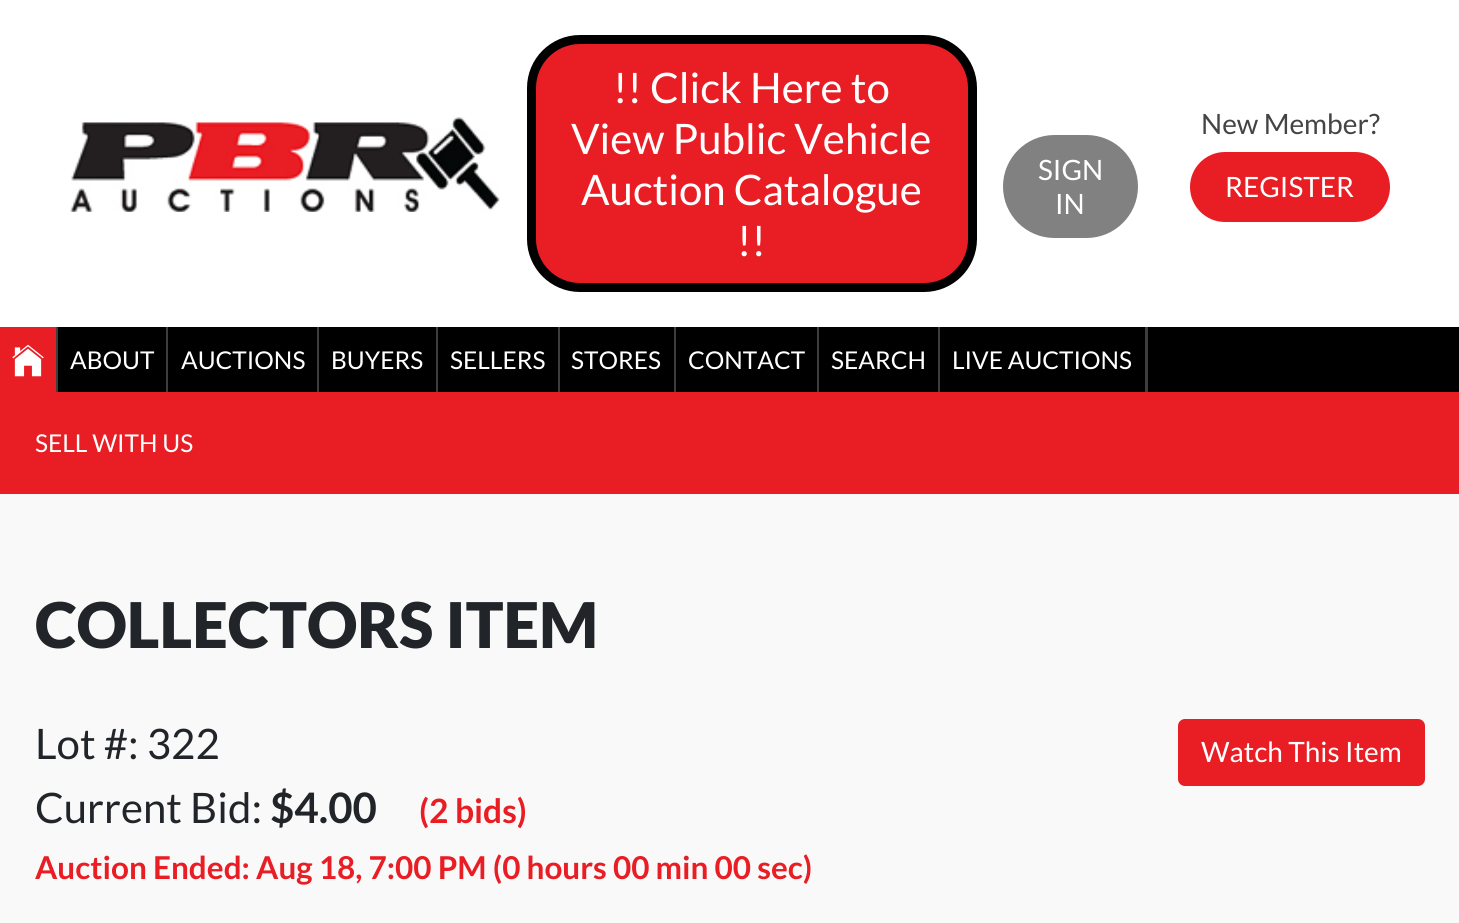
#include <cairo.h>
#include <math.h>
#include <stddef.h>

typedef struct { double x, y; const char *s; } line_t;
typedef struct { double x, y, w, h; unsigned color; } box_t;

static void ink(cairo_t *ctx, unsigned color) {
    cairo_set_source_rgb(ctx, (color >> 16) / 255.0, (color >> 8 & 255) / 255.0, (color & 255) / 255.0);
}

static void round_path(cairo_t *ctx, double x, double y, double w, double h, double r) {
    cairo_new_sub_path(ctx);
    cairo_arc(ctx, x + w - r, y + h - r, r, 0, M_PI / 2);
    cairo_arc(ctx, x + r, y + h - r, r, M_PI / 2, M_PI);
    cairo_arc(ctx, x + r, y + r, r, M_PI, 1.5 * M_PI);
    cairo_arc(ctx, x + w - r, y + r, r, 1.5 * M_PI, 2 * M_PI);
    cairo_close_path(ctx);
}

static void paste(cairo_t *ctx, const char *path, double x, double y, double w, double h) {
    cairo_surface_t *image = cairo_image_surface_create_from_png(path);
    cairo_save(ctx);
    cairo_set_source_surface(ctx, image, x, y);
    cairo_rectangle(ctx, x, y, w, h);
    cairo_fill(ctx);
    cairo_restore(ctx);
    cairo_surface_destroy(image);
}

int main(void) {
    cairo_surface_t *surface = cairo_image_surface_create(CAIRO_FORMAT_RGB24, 1459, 923);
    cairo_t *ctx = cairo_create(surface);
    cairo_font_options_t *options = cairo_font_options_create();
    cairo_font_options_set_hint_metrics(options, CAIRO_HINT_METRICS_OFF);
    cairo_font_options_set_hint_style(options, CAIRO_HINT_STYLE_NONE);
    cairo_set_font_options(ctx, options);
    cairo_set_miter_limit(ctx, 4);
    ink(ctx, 0xF9F9F9);
    cairo_paint(ctx);
    ink(ctx, 0xFFFFFF);
    cairo_rectangle(ctx, 0, 0, 1459, 327);
    cairo_fill(ctx);
    paste(ctx, "media/1.png", 70, 117, 430, 95);
    ink(ctx, 0xE91E24);
    round_path(ctx, 531.5, 39.5, 441, 248, 48.5);
    cairo_fill_preserve(ctx);
    ink(ctx, 0x000000);
    cairo_set_line_width(ctx, 9);
    cairo_stroke(ctx);
    cairo_select_font_face(ctx, "Lato", CAIRO_FONT_SLANT_NORMAL, CAIRO_FONT_WEIGHT_NORMAL);
    cairo_set_font_size(ctx, 42);
    ink(ctx, 0xFFFFFF);
    {
        static const line_t items[] = {
            {613, 103, "!! Click Here to"},
            {571, 154, "View Public Vehicle"},
            {581, 205, "Auction Catalogue"},
            {737, 256, "!!"},
        };
        for (size_t i = 0; i < sizeof items / sizeof *items; i++) {
            cairo_move_to(ctx, items[i].x, items[i].y);
            cairo_show_text(ctx, items[i].s);
        }
    }
    ink(ctx, 0x818181);
    round_path(ctx, 1003, 135, 135, 103, 51.5);
    cairo_fill(ctx);
    cairo_set_font_size(ctx, 28);
    ink(ctx, 0xFFFFFF);
    cairo_move_to(ctx, 1038, 180);
    cairo_show_text(ctx, "SIGN");
    cairo_move_to(ctx, 1055, 214);
    cairo_show_text(ctx, "IN");
    ink(ctx, 0x444444);
    cairo_move_to(ctx, 1201, 134);
    cairo_show_text(ctx, "New Member?");
    ink(ctx, 0xE91E24);
    round_path(ctx, 1190, 152, 200, 70, 35);
    cairo_fill(ctx);
    ink(ctx, 0xFFFFFF);
    cairo_move_to(ctx, 1225, 197);
    cairo_show_text(ctx, "REGISTER");
    {
        static const box_t items[] = {
            {58, 327, 1401, 65, 0x000000},
            {56, 327, 2, 65, 0x3D3D3D},
            {0, 327, 56, 65, 0xE91E24},
        };
        for (size_t i = 0; i < sizeof items / sizeof *items; i++) {
            ink(ctx, items[i].color);
            cairo_rectangle(ctx, items[i].x, items[i].y, items[i].w, items[i].h);
            cairo_fill(ctx);
        }
    }
    paste(ctx, "media/2.png", 12, 344, 32, 33);
    ink(ctx, 0x3D3D3D);
    cairo_rectangle(ctx, 166, 327, 2, 65);
    cairo_fill(ctx);
    cairo_set_font_size(ctx, 24.5);
    ink(ctx, 0xFFFFFF);
    cairo_move_to(ctx, 70, 369);
    cairo_show_text(ctx, "ABOUT");
    ink(ctx, 0x3D3D3D);
    cairo_rectangle(ctx, 317, 327, 2, 65);
    cairo_fill(ctx);
    ink(ctx, 0xFFFFFF);
    cairo_move_to(ctx, 181, 369);
    cairo_show_text(ctx, "AUCTIONS");
    ink(ctx, 0x3D3D3D);
    cairo_rectangle(ctx, 436, 327, 2, 65);
    cairo_fill(ctx);
    ink(ctx, 0xFFFFFF);
    cairo_move_to(ctx, 331, 369);
    cairo_show_text(ctx, "BUYERS");
    ink(ctx, 0x3D3D3D);
    cairo_rectangle(ctx, 558, 327, 2, 65);
    cairo_fill(ctx);
    ink(ctx, 0xFFFFFF);
    cairo_move_to(ctx, 450, 369);
    cairo_show_text(ctx, "SELLERS");
    ink(ctx, 0x3D3D3D);
    cairo_rectangle(ctx, 674, 327, 2, 65);
    cairo_fill(ctx);
    ink(ctx, 0xFFFFFF);
    cairo_move_to(ctx, 571, 369);
    cairo_show_text(ctx, "STORES");
    ink(ctx, 0x3D3D3D);
    cairo_rectangle(ctx, 817, 327, 2, 65);
    cairo_fill(ctx);
    ink(ctx, 0xFFFFFF);
    cairo_move_to(ctx, 688, 369);
    cairo_show_text(ctx, "CONTACT");
    ink(ctx, 0x3D3D3D);
    cairo_rectangle(ctx, 938, 327, 2, 65);
    cairo_fill(ctx);
    ink(ctx, 0xFFFFFF);
    cairo_move_to(ctx, 831, 369);
    cairo_show_text(ctx, "SEARCH");
    ink(ctx, 0x3D3D3D);
    cairo_rectangle(ctx, 1145, 327, 3, 65);
    cairo_fill(ctx);
    ink(ctx, 0xFFFFFF);
    cairo_move_to(ctx, 952, 369);
    cairo_show_text(ctx, "LIVE AUCTIONS");
    ink(ctx, 0xE91E24);
    cairo_rectangle(ctx, 0, 392, 1459, 102);
    cairo_fill(ctx);
    ink(ctx, 0xFFFFFF);
    cairo_move_to(ctx, 35, 452);
    cairo_show_text(ctx, "SELL WITH US");
    cairo_select_font_face(ctx, "Lato Black", CAIRO_FONT_SLANT_NORMAL, CAIRO_FONT_WEIGHT_NORMAL);
    cairo_set_font_size(ctx, 63);
    ink(ctx, 0x212529);
    cairo_move_to(ctx, 35, 648);
    cairo_show_text(ctx, "COLLECTORS ITEM");
    cairo_select_font_face(ctx, "Lato", CAIRO_FONT_SLANT_NORMAL, CAIRO_FONT_WEIGHT_NORMAL);
    cairo_set_font_size(ctx, 42);
    cairo_move_to(ctx, 35, 759);
    cairo_show_text(ctx, "Lot #: 322");
    ink(ctx, 0xE91E24);
    round_path(ctx, 1179, 720, 245, 65, 6);
    cairo_fill_preserve(ctx);
    cairo_set_line_width(ctx, 2);
    cairo_stroke(ctx);
    cairo_set_font_size(ctx, 28);
    ink(ctx, 0xFFFFFF);
    cairo_move_to(ctx, 1201, 762);
    cairo_show_text(ctx, "Watch This Item");
    cairo_set_font_size(ctx, 42);
    ink(ctx, 0x212529);
    cairo_move_to(ctx, 35, 823);
    cairo_show_text(ctx, "Current Bid:");
    cairo_select_font_face(ctx, "Lato", CAIRO_FONT_SLANT_NORMAL, CAIRO_FONT_WEIGHT_BOLD);
    cairo_move_to(ctx, 270, 823);
    cairo_show_text(ctx, "$4.00");
    cairo_set_font_size(ctx, 33.5);
    ink(ctx, 0xE91E24);
    cairo_move_to(ctx, 419, 823);
    cairo_show_text(ctx, "(2 bids)");
    cairo_set_font_size(ctx, 31.5);
    cairo_move_to(ctx, 35, 879);
    cairo_show_text(ctx, "Auction Ended: Aug 18, 7:00 PM (0 hours 00 min 00 sec)");
    cairo_surface_write_to_png(surface, "image.png");
    cairo_font_options_destroy(options);
    cairo_destroy(ctx);
    cairo_surface_destroy(surface);
    return 0;
}
